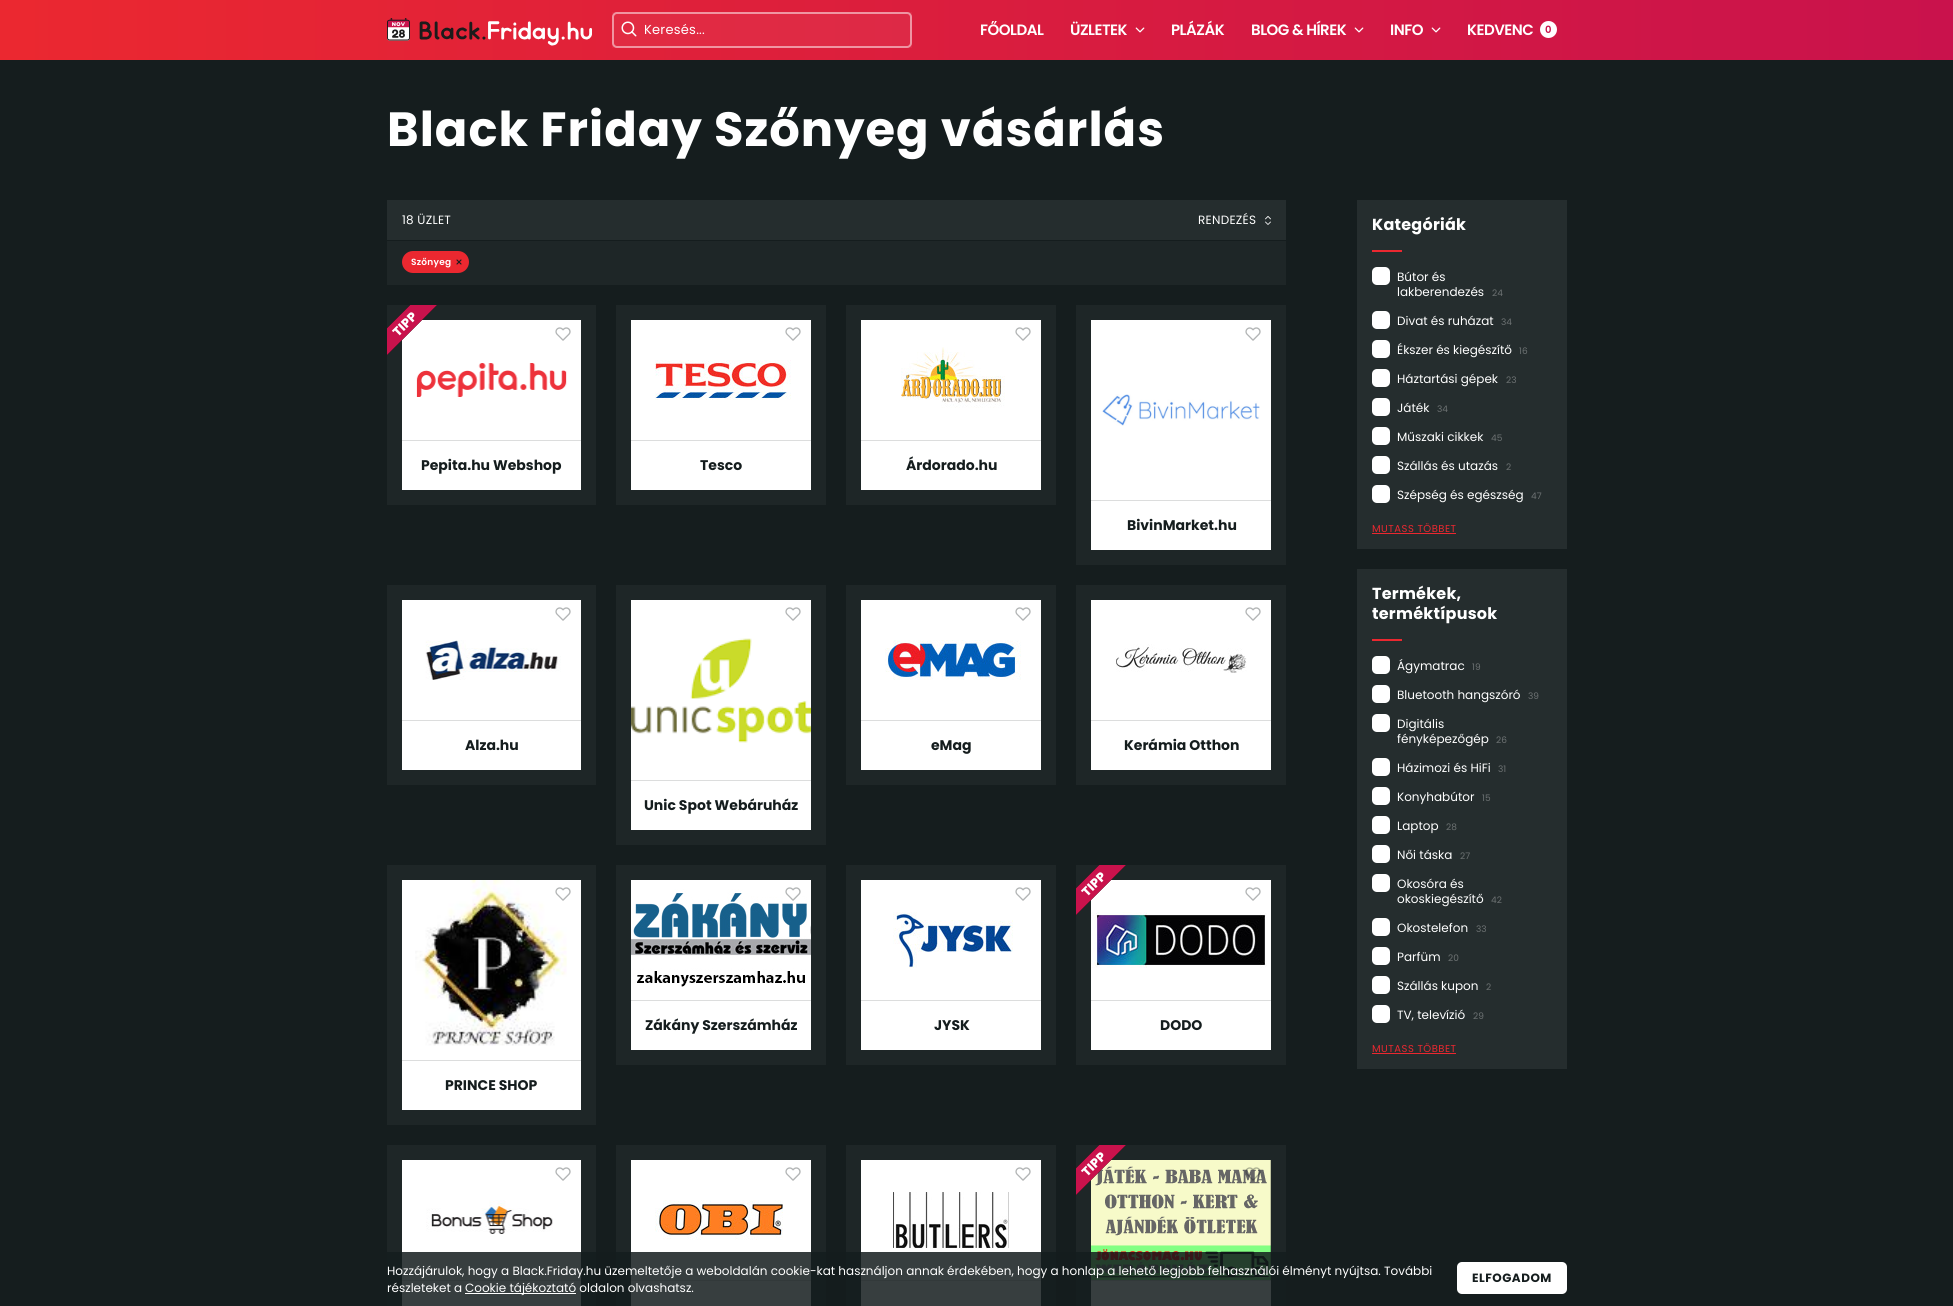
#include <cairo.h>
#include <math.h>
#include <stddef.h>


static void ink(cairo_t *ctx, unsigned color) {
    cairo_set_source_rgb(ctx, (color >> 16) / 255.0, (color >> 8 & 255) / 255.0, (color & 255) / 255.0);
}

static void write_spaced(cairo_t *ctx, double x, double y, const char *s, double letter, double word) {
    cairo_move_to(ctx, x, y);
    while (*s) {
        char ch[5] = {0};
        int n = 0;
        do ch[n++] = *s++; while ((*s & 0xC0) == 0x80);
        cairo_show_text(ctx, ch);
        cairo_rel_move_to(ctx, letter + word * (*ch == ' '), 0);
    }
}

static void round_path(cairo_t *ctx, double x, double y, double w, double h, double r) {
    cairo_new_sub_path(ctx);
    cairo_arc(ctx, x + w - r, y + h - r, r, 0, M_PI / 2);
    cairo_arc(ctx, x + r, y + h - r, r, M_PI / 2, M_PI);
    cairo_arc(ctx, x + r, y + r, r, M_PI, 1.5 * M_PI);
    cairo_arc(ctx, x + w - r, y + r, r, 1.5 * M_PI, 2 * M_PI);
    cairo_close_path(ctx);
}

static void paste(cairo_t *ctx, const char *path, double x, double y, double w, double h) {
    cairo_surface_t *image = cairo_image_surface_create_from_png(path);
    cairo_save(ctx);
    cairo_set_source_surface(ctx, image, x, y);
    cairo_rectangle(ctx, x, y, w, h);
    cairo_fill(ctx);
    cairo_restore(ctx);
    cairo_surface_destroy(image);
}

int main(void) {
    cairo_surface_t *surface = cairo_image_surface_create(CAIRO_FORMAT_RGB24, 1953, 1306);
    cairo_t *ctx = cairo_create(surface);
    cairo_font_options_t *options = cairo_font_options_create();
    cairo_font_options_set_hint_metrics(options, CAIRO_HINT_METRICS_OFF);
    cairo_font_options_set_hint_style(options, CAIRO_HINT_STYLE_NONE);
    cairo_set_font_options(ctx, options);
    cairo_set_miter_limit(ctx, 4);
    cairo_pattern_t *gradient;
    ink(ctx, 0x151D1E);
    cairo_paint(ctx);
    gradient = cairo_pattern_create_linear(0, 30, 1953, 30);
    cairo_pattern_add_color_stop_rgba(gradient, 0, 0.922, 0.157, 0.188, 1);
    cairo_pattern_add_color_stop_rgba(gradient, 1, 0.788, 0.071, 0.298, 1);
    cairo_set_source(ctx, gradient);
    cairo_pattern_destroy(gradient);
    cairo_rectangle(ctx, 0, 0, 1953, 60);
    cairo_fill(ctx);
    paste(ctx, "media/1.png", 387, 18, 205, 28);
    cairo_set_source_rgba(ctx, 1, 1, 1, 0.05);
    cairo_rectangle(ctx, 612, 12, 300, 36);
    cairo_fill(ctx);
    round_path(ctx, 613, 13, 298, 34, 4);
    cairo_set_source_rgba(ctx, 1, 1, 1, 0.5);
    cairo_stroke(ctx);
    paste(ctx, "media/2.png", 621, 21, 16, 16);
    cairo_select_font_face(ctx, "Poppins", CAIRO_FONT_SLANT_NORMAL, CAIRO_FONT_WEIGHT_NORMAL);
    cairo_set_font_size(ctx, 13);
    ink(ctx, 0xFFFFFF);
    write_spaced(ctx, 644, 34, "Keresés...", 0.25, 0);
    cairo_select_font_face(ctx, "Poppins SemiBold", CAIRO_FONT_SLANT_NORMAL, CAIRO_FONT_WEIGHT_NORMAL);
    cairo_set_font_size(ctx, 15);
    write_spaced(ctx, 980, 35, "FŐOLDAL", -0.5, 0);
    write_spaced(ctx, 1070, 35, "ÜZLETEK", -0.5, 0);
    paste(ctx, "media/3.png", 1135, 27, 10, 6);
    write_spaced(ctx, 1171, 35, "PLÁZÁK", -0.5, 0);
    write_spaced(ctx, 1251, 35, "BLOG & HÍREK", -0.5, 0);
    paste(ctx, "media/4.png", 1354, 27, 10, 6);
    write_spaced(ctx, 1390, 35, "INFO", -0.5, 0);
    paste(ctx, "media/5.png", 1431, 27, 10, 6);
    write_spaced(ctx, 1467, 35, "KEDVENC", -0.5, 0);
    cairo_new_path(ctx);
    cairo_arc(ctx, 1548.5, 29.5, 8.5, 0, 2 * M_PI);
    cairo_fill(ctx);
    cairo_set_font_size(ctx, 10);
    ink(ctx, 0xC9124C);
    cairo_move_to(ctx, 1545, 33);
    cairo_show_text(ctx, "0");
    cairo_select_font_face(ctx, "Poppins", CAIRO_FONT_SLANT_NORMAL, CAIRO_FONT_WEIGHT_BOLD);
    cairo_set_font_size(ctx, 48);
    ink(ctx, 0xFFFFFF);
    write_spaced(ctx, 387, 146, "Black Friday Szőnyeg vásárlás", 1, 0);
    ink(ctx, 0x252D2E);
    cairo_rectangle(ctx, 387, 200, 899, 40);
    cairo_fill(ctx);
    cairo_select_font_face(ctx, "Poppins", CAIRO_FONT_SLANT_NORMAL, CAIRO_FONT_WEIGHT_NORMAL);
    cairo_set_font_size(ctx, 12);
    ink(ctx, 0xFFFFFF);
    write_spaced(ctx, 402, 224, "18 ÜZLET", 0.25, 0);
    write_spaced(ctx, 1198, 224, "RENDEZÉS", 0.25, 0);
    paste(ctx, "media/6.png", 1265, 216, 6, 9);
    ink(ctx, 0x1E2627);
    cairo_rectangle(ctx, 387, 241, 899, 44);
    cairo_fill(ctx);
    ink(ctx, 0xEB2830);
    round_path(ctx, 402, 251, 67, 22, 11);
    cairo_fill(ctx);
    cairo_select_font_face(ctx, "Poppins SemiBold", CAIRO_FONT_SLANT_NORMAL, CAIRO_FONT_WEIGHT_NORMAL);
    cairo_set_font_size(ctx, 9);
    ink(ctx, 0xFFFFFF);
    write_spaced(ctx, 411, 265, "Szőnyeg", 0.25, 0);
    paste(ctx, "media/7.png", 456, 259, 6, 6);
    ink(ctx, 0x1E2627);
    cairo_rectangle(ctx, 387, 305, 209, 200);
    cairo_fill(ctx);
    ink(ctx, 0xFFFFFF);
    cairo_rectangle(ctx, 402, 320, 179, 120);
    cairo_fill(ctx);
    paste(ctx, "media/8.png", 387, 305, 50, 50);
    paste(ctx, "media/9.png", 555, 327, 16, 14);
    paste(ctx, "media/10.png", 416, 363, 151, 34);
    cairo_rectangle(ctx, 402, 441, 179, 49);
    cairo_fill(ctx);
    ink(ctx, 0xDCDDDD);
    cairo_rectangle(ctx, 402, 440, 179, 1);
    cairo_fill(ctx);
    cairo_select_font_face(ctx, "Poppins", CAIRO_FONT_SLANT_NORMAL, CAIRO_FONT_WEIGHT_BOLD);
    cairo_set_font_size(ctx, 14);
    ink(ctx, 0x151D1E);
    cairo_move_to(ctx, 421, 470);
    cairo_show_text(ctx, "Pepita.hu Webshop");
    ink(ctx, 0x1E2627);
    cairo_rectangle(ctx, 616, 305, 210, 200);
    cairo_fill(ctx);
    ink(ctx, 0xFFFFFF);
    cairo_rectangle(ctx, 631, 320, 180, 120);
    cairo_fill(ctx);
    paste(ctx, "media/9.png", 785, 327, 16, 14);
    paste(ctx, "media/11.png", 655, 360, 136, 40);
    cairo_rectangle(ctx, 631, 441, 180, 49);
    cairo_fill(ctx);
    ink(ctx, 0xDCDDDD);
    cairo_rectangle(ctx, 631, 440, 180, 1);
    cairo_fill(ctx);
    ink(ctx, 0x151D1E);
    cairo_move_to(ctx, 700, 470);
    cairo_show_text(ctx, "Tesco");
    ink(ctx, 0x1E2627);
    cairo_rectangle(ctx, 846, 305, 210, 200);
    cairo_fill(ctx);
    ink(ctx, 0xFFFFFF);
    cairo_rectangle(ctx, 861, 320, 180, 120);
    cairo_fill(ctx);
    paste(ctx, "media/9.png", 1015, 327, 16, 14);
    paste(ctx, "media/12.png", 901, 347, 104, 61);
    cairo_rectangle(ctx, 861, 441, 180, 49);
    cairo_fill(ctx);
    ink(ctx, 0xDCDDDD);
    cairo_rectangle(ctx, 861, 440, 180, 1);
    cairo_fill(ctx);
    ink(ctx, 0x151D1E);
    cairo_move_to(ctx, 906, 470);
    cairo_show_text(ctx, "Árdorado.hu");
    ink(ctx, 0x1E2627);
    cairo_rectangle(ctx, 1076, 305, 210, 260);
    cairo_fill(ctx);
    ink(ctx, 0xFFFFFF);
    cairo_rectangle(ctx, 1091, 320, 180, 180);
    cairo_fill(ctx);
    paste(ctx, "media/9.png", 1245, 327, 16, 14);
    paste(ctx, "media/13.png", 1102, 394, 158, 32);
    cairo_rectangle(ctx, 1091, 501, 180, 49);
    cairo_fill(ctx);
    ink(ctx, 0xDCDDDD);
    cairo_rectangle(ctx, 1091, 500, 180, 1);
    cairo_fill(ctx);
    ink(ctx, 0x151D1E);
    cairo_move_to(ctx, 1127, 530);
    cairo_show_text(ctx, "BivinMarket.hu");
    ink(ctx, 0x1E2627);
    cairo_rectangle(ctx, 387, 585, 209, 200);
    cairo_fill(ctx);
    ink(ctx, 0xFFFFFF);
    cairo_rectangle(ctx, 402, 600, 179, 120);
    cairo_fill(ctx);
    paste(ctx, "media/9.png", 555, 607, 16, 14);
    paste(ctx, "media/14.png", 425, 640, 136, 40);
    cairo_rectangle(ctx, 402, 721, 179, 49);
    cairo_fill(ctx);
    ink(ctx, 0xDCDDDD);
    cairo_rectangle(ctx, 402, 720, 179, 1);
    cairo_fill(ctx);
    ink(ctx, 0x151D1E);
    cairo_move_to(ctx, 465, 750);
    cairo_show_text(ctx, "Alza.hu");
    ink(ctx, 0x1E2627);
    cairo_rectangle(ctx, 846, 585, 210, 200);
    cairo_fill(ctx);
    ink(ctx, 0xFFFFFF);
    cairo_rectangle(ctx, 861, 600, 180, 120);
    cairo_fill(ctx);
    paste(ctx, "media/9.png", 1015, 607, 16, 14);
    paste(ctx, "media/15.png", 885, 640, 136, 40);
    cairo_rectangle(ctx, 861, 721, 180, 49);
    cairo_fill(ctx);
    ink(ctx, 0xDCDDDD);
    cairo_rectangle(ctx, 861, 720, 180, 1);
    cairo_fill(ctx);
    ink(ctx, 0x151D1E);
    cairo_move_to(ctx, 931, 750);
    cairo_show_text(ctx, "eMag");
    ink(ctx, 0x1E2627);
    cairo_rectangle(ctx, 1076, 585, 210, 200);
    cairo_fill(ctx);
    ink(ctx, 0xFFFFFF);
    cairo_rectangle(ctx, 1091, 600, 180, 120);
    cairo_fill(ctx);
    paste(ctx, "media/9.png", 1245, 607, 16, 14);
    paste(ctx, "media/16.png", 1116, 644, 131, 29);
    cairo_rectangle(ctx, 1091, 721, 180, 49);
    cairo_fill(ctx);
    ink(ctx, 0xDCDDDD);
    cairo_rectangle(ctx, 1091, 720, 180, 1);
    cairo_fill(ctx);
    ink(ctx, 0x151D1E);
    cairo_move_to(ctx, 1124, 750);
    cairo_show_text(ctx, "Kerámia Otthon");
    ink(ctx, 0x1E2627);
    cairo_rectangle(ctx, 616, 585, 210, 260);
    cairo_fill(ctx);
    ink(ctx, 0xFFFFFF);
    cairo_rectangle(ctx, 631, 600, 180, 180);
    cairo_fill(ctx);
    paste(ctx, "media/9.png", 785, 607, 16, 14);
    paste(ctx, "media/17.png", 631, 638, 180, 105);
    cairo_rectangle(ctx, 631, 781, 180, 49);
    cairo_fill(ctx);
    ink(ctx, 0xDCDDDD);
    cairo_rectangle(ctx, 631, 780, 180, 1);
    cairo_fill(ctx);
    ink(ctx, 0x151D1E);
    cairo_move_to(ctx, 644, 810);
    cairo_show_text(ctx, "Unic Spot Webáruház");
    ink(ctx, 0x1E2627);
    cairo_rectangle(ctx, 616, 865, 210, 200);
    cairo_fill(ctx);
    ink(ctx, 0xFFFFFF);
    cairo_rectangle(ctx, 631, 880, 180, 120);
    cairo_fill(ctx);
    paste(ctx, "media/19.png", 631, 889, 180, 98);
    paste(ctx, "media/18.png", 785, 887, 16, 14);
    cairo_rectangle(ctx, 631, 1001, 180, 49);
    cairo_fill(ctx);
    ink(ctx, 0xDCDDDD);
    cairo_rectangle(ctx, 631, 1000, 180, 1);
    cairo_fill(ctx);
    ink(ctx, 0x151D1E);
    cairo_move_to(ctx, 645, 1030);
    cairo_show_text(ctx, "Zákány Szerszámház");
    ink(ctx, 0x1E2627);
    cairo_rectangle(ctx, 846, 865, 210, 200);
    cairo_fill(ctx);
    ink(ctx, 0xFFFFFF);
    cairo_rectangle(ctx, 861, 880, 180, 120);
    cairo_fill(ctx);
    paste(ctx, "media/9.png", 1015, 887, 16, 14);
    paste(ctx, "media/20.png", 893, 912, 120, 56);
    cairo_rectangle(ctx, 861, 1001, 180, 49);
    cairo_fill(ctx);
    ink(ctx, 0xDCDDDD);
    cairo_rectangle(ctx, 861, 1000, 180, 1);
    cairo_fill(ctx);
    ink(ctx, 0x151D1E);
    cairo_move_to(ctx, 934, 1030);
    cairo_show_text(ctx, "JYSK");
    ink(ctx, 0x1E2627);
    cairo_rectangle(ctx, 1076, 865, 210, 200);
    cairo_fill(ctx);
    ink(ctx, 0xFFFFFF);
    cairo_rectangle(ctx, 1091, 880, 180, 120);
    cairo_fill(ctx);
    paste(ctx, "media/22.png", 1091, 912, 176, 56);
    paste(ctx, "media/21.png", 1076, 865, 50, 50);
    paste(ctx, "media/9.png", 1245, 887, 16, 14);
    cairo_rectangle(ctx, 1091, 1001, 180, 49);
    cairo_fill(ctx);
    ink(ctx, 0xDCDDDD);
    cairo_rectangle(ctx, 1091, 1000, 180, 1);
    cairo_fill(ctx);
    ink(ctx, 0x151D1E);
    cairo_move_to(ctx, 1160, 1030);
    cairo_show_text(ctx, "DODO");
    ink(ctx, 0x1E2627);
    cairo_rectangle(ctx, 387, 865, 209, 260);
    cairo_fill(ctx);
    ink(ctx, 0xFFFFFF);
    cairo_rectangle(ctx, 402, 880, 179, 180);
    cairo_fill(ctx);
    paste(ctx, "media/23.png", 415, 880, 152, 166);
    paste(ctx, "media/9.png", 555, 887, 16, 14);
    cairo_rectangle(ctx, 402, 1061, 179, 49);
    cairo_fill(ctx);
    ink(ctx, 0xDCDDDD);
    cairo_rectangle(ctx, 402, 1060, 179, 1);
    cairo_fill(ctx);
    ink(ctx, 0x151D1E);
    cairo_move_to(ctx, 445, 1090);
    cairo_show_text(ctx, "PRINCE SHOP");
    ink(ctx, 0x1E2627);
    cairo_rectangle(ctx, 387, 1145, 209, 161);
    cairo_fill(ctx);
    ink(ctx, 0xFFFFFF);
    cairo_rectangle(ctx, 402, 1160, 179, 120);
    cairo_fill(ctx);
    paste(ctx, "media/24.png", 426, 1200, 127, 34);
    cairo_rectangle(ctx, 402, 1281, 179, 25);
    cairo_fill(ctx);
    ink(ctx, 0xDCDDDD);
    cairo_rectangle(ctx, 402, 1280, 179, 1);
    cairo_fill(ctx);
    paste(ctx, "media/9.png", 555, 1167, 16, 14);
    ink(ctx, 0x1E2627);
    cairo_rectangle(ctx, 616, 1145, 210, 161);
    cairo_fill(ctx);
    ink(ctx, 0xFFFFFF);
    cairo_rectangle(ctx, 631, 1160, 180, 120);
    cairo_fill(ctx);
    paste(ctx, "media/25.png", 655, 1200, 128, 40);
    cairo_rectangle(ctx, 631, 1281, 180, 25);
    cairo_fill(ctx);
    ink(ctx, 0xDCDDDD);
    cairo_rectangle(ctx, 631, 1280, 180, 1);
    cairo_fill(ctx);
    paste(ctx, "media/9.png", 785, 1167, 16, 14);
    ink(ctx, 0x1E2627);
    cairo_rectangle(ctx, 846, 1145, 210, 161);
    cairo_fill(ctx);
    ink(ctx, 0xFFFFFF);
    cairo_rectangle(ctx, 861, 1160, 180, 120);
    cairo_fill(ctx);
    paste(ctx, "media/26.png", 893, 1192, 117, 56);
    cairo_rectangle(ctx, 861, 1281, 180, 25);
    cairo_fill(ctx);
    ink(ctx, 0xDCDDDD);
    cairo_rectangle(ctx, 861, 1280, 180, 1);
    cairo_fill(ctx);
    paste(ctx, "media/9.png", 1015, 1167, 16, 14);
    ink(ctx, 0x1E2627);
    cairo_rectangle(ctx, 1076, 1145, 210, 161);
    cairo_fill(ctx);
    paste(ctx, "media/27.png", 1091, 1160, 180, 120);
    ink(ctx, 0xFFFFFF);
    cairo_rectangle(ctx, 1091, 1281, 180, 25);
    cairo_fill(ctx);
    ink(ctx, 0xDCDDDD);
    cairo_rectangle(ctx, 1091, 1280, 180, 1);
    cairo_fill(ctx);
    paste(ctx, "media/28.png", 1076, 1145, 50, 50);
    paste(ctx, "media/29.png", 1245, 1167, 16, 14);
    ink(ctx, 0x252D2E);
    cairo_rectangle(ctx, 1357, 200, 210, 349);
    cairo_fill(ctx);
    cairo_set_font_size(ctx, 16);
    ink(ctx, 0xFFFFFF);
    write_spaced(ctx, 1372, 230, "Kategóriák", 0.25, 0);
    ink(ctx, 0xEB2830);
    cairo_rectangle(ctx, 1372, 250, 30, 2);
    cairo_fill(ctx);
    ink(ctx, 0xFFFFFF);
    round_path(ctx, 1372, 267, 18, 18, 5);
    cairo_fill(ctx);
    cairo_select_font_face(ctx, "Poppins", CAIRO_FONT_SLANT_NORMAL, CAIRO_FONT_WEIGHT_NORMAL);
    cairo_set_font_size(ctx, 12);
    cairo_move_to(ctx, 1397, 281);
    cairo_show_text(ctx, "Bútor és");
    cairo_move_to(ctx, 1397, 296);
    cairo_show_text(ctx, "lakberendezés");
    cairo_set_font_size(ctx, 9);
    ink(ctx, 0x6D7273);
    cairo_move_to(ctx, 1492, 296);
    cairo_show_text(ctx, "24");
    ink(ctx, 0xFFFFFF);
    round_path(ctx, 1372, 311, 18, 18, 5);
    cairo_fill(ctx);
    cairo_set_font_size(ctx, 12);
    cairo_move_to(ctx, 1397, 325);
    cairo_show_text(ctx, "Divat és ruházat");
    cairo_set_font_size(ctx, 9);
    ink(ctx, 0x6D7273);
    cairo_move_to(ctx, 1501, 325);
    cairo_show_text(ctx, "34");
    ink(ctx, 0xFFFFFF);
    round_path(ctx, 1372, 340, 18, 18, 5);
    cairo_fill(ctx);
    cairo_set_font_size(ctx, 12);
    cairo_move_to(ctx, 1397, 354);
    cairo_show_text(ctx, "Ékszer és kiegészítő");
    cairo_set_font_size(ctx, 9);
    ink(ctx, 0x6D7273);
    cairo_move_to(ctx, 1519, 354);
    cairo_show_text(ctx, "16");
    ink(ctx, 0xFFFFFF);
    round_path(ctx, 1372, 369, 18, 18, 5);
    cairo_fill(ctx);
    cairo_set_font_size(ctx, 12);
    cairo_move_to(ctx, 1397, 383);
    cairo_show_text(ctx, "Háztartási gépek");
    cairo_set_font_size(ctx, 9);
    ink(ctx, 0x6D7273);
    cairo_move_to(ctx, 1506, 383);
    cairo_show_text(ctx, "23");
    ink(ctx, 0xFFFFFF);
    round_path(ctx, 1372, 398, 18, 18, 5);
    cairo_fill(ctx);
    cairo_set_font_size(ctx, 12);
    cairo_move_to(ctx, 1397, 412);
    cairo_show_text(ctx, "Játék");
    cairo_set_font_size(ctx, 9);
    ink(ctx, 0x6D7273);
    cairo_move_to(ctx, 1437, 412);
    cairo_show_text(ctx, "34");
    ink(ctx, 0xFFFFFF);
    round_path(ctx, 1372, 427, 18, 18, 5);
    cairo_fill(ctx);
    cairo_set_font_size(ctx, 12);
    cairo_move_to(ctx, 1397, 441);
    cairo_show_text(ctx, "Műszaki cikkek");
    cairo_set_font_size(ctx, 9);
    ink(ctx, 0x6D7273);
    cairo_move_to(ctx, 1491, 441);
    cairo_show_text(ctx, "45");
    ink(ctx, 0xFFFFFF);
    round_path(ctx, 1372, 456, 18, 18, 5);
    cairo_fill(ctx);
    cairo_set_font_size(ctx, 12);
    cairo_move_to(ctx, 1397, 470);
    cairo_show_text(ctx, "Szállás és utazás");
    cairo_set_font_size(ctx, 9);
    ink(ctx, 0x6D7273);
    cairo_move_to(ctx, 1506, 470);
    cairo_show_text(ctx, "2");
    ink(ctx, 0xFFFFFF);
    round_path(ctx, 1372, 485, 18, 18, 5);
    cairo_fill(ctx);
    cairo_set_font_size(ctx, 12);
    cairo_move_to(ctx, 1397, 499);
    cairo_show_text(ctx, "Szépség és egészség");
    cairo_set_font_size(ctx, 9);
    ink(ctx, 0x6D7273);
    cairo_move_to(ctx, 1531, 499);
    cairo_show_text(ctx, "47");
    cairo_set_font_size(ctx, 10);
    ink(ctx, 0xEB2830);
    write_spaced(ctx, 1372, 532, "MUTASS TÖBBET", 0.5, 0);
    cairo_rectangle(ctx, 1372, 533, 84, 1);
    cairo_fill(ctx);
    ink(ctx, 0x252D2E);
    cairo_rectangle(ctx, 1357, 569, 210, 500);
    cairo_fill(ctx);
    cairo_select_font_face(ctx, "Poppins", CAIRO_FONT_SLANT_NORMAL, CAIRO_FONT_WEIGHT_BOLD);
    cairo_set_font_size(ctx, 16);
    ink(ctx, 0xFFFFFF);
    write_spaced(ctx, 1372, 599, "Termékek,", 0.25, 0);
    write_spaced(ctx, 1372, 619, "terméktípusok", 0.25, 0);
    ink(ctx, 0xEB2830);
    cairo_rectangle(ctx, 1372, 639, 30, 2);
    cairo_fill(ctx);
    ink(ctx, 0xFFFFFF);
    round_path(ctx, 1372, 656, 18, 18, 5);
    cairo_fill(ctx);
    cairo_select_font_face(ctx, "Poppins", CAIRO_FONT_SLANT_NORMAL, CAIRO_FONT_WEIGHT_NORMAL);
    cairo_set_font_size(ctx, 12);
    cairo_move_to(ctx, 1397, 670);
    cairo_show_text(ctx, "Ágymatrac");
    cairo_set_font_size(ctx, 9);
    ink(ctx, 0x6D7273);
    cairo_move_to(ctx, 1472, 670);
    cairo_show_text(ctx, "19");
    ink(ctx, 0xFFFFFF);
    round_path(ctx, 1372, 685, 18, 18, 5);
    cairo_fill(ctx);
    cairo_set_font_size(ctx, 12);
    cairo_move_to(ctx, 1397, 699);
    cairo_show_text(ctx, "Bluetooth hangszóró");
    cairo_set_font_size(ctx, 9);
    ink(ctx, 0x6D7273);
    cairo_move_to(ctx, 1528, 699);
    cairo_show_text(ctx, "39");
    ink(ctx, 0xFFFFFF);
    round_path(ctx, 1372, 714, 18, 18, 5);
    cairo_fill(ctx);
    cairo_set_font_size(ctx, 12);
    cairo_move_to(ctx, 1397, 728);
    cairo_show_text(ctx, "Digitális");
    cairo_move_to(ctx, 1397, 743);
    cairo_show_text(ctx, "fényképezőgép");
    cairo_set_font_size(ctx, 9);
    ink(ctx, 0x6D7273);
    cairo_move_to(ctx, 1496, 743);
    cairo_show_text(ctx, "26");
    ink(ctx, 0xFFFFFF);
    round_path(ctx, 1372, 758, 18, 18, 5);
    cairo_fill(ctx);
    cairo_set_font_size(ctx, 12);
    cairo_move_to(ctx, 1397, 772);
    cairo_show_text(ctx, "Házimozi és HiFi");
    cairo_set_font_size(ctx, 9);
    ink(ctx, 0x6D7273);
    cairo_move_to(ctx, 1498, 772);
    cairo_show_text(ctx, "31");
    ink(ctx, 0xFFFFFF);
    round_path(ctx, 1372, 787, 18, 18, 5);
    cairo_fill(ctx);
    cairo_set_font_size(ctx, 12);
    cairo_move_to(ctx, 1397, 801);
    cairo_show_text(ctx, "Konyhabútor");
    cairo_set_font_size(ctx, 9);
    ink(ctx, 0x6D7273);
    cairo_move_to(ctx, 1482, 801);
    cairo_show_text(ctx, "15");
    ink(ctx, 0xFFFFFF);
    round_path(ctx, 1372, 816, 18, 18, 5);
    cairo_fill(ctx);
    cairo_set_font_size(ctx, 12);
    cairo_move_to(ctx, 1397, 830);
    cairo_show_text(ctx, "Laptop");
    cairo_set_font_size(ctx, 9);
    ink(ctx, 0x6D7273);
    cairo_move_to(ctx, 1446, 830);
    cairo_show_text(ctx, "28");
    ink(ctx, 0xFFFFFF);
    round_path(ctx, 1372, 845, 18, 18, 5);
    cairo_fill(ctx);
    cairo_set_font_size(ctx, 12);
    cairo_move_to(ctx, 1397, 859);
    cairo_show_text(ctx, "Női táska");
    cairo_set_font_size(ctx, 9);
    ink(ctx, 0x6D7273);
    cairo_move_to(ctx, 1460, 859);
    cairo_show_text(ctx, "27");
    ink(ctx, 0xFFFFFF);
    round_path(ctx, 1372, 874, 18, 18, 5);
    cairo_fill(ctx);
    cairo_set_font_size(ctx, 12);
    cairo_move_to(ctx, 1397, 888);
    cairo_show_text(ctx, "Okosóra és");
    cairo_move_to(ctx, 1397, 903);
    cairo_show_text(ctx, "okoskiegészítő");
    cairo_set_font_size(ctx, 9);
    ink(ctx, 0x6D7273);
    cairo_move_to(ctx, 1491, 903);
    cairo_show_text(ctx, "42");
    ink(ctx, 0xFFFFFF);
    round_path(ctx, 1372, 918, 18, 18, 5);
    cairo_fill(ctx);
    cairo_set_font_size(ctx, 12);
    cairo_move_to(ctx, 1397, 932);
    cairo_show_text(ctx, "Okostelefon");
    cairo_set_font_size(ctx, 9);
    ink(ctx, 0x6D7273);
    cairo_move_to(ctx, 1476, 932);
    cairo_show_text(ctx, "33");
    ink(ctx, 0xFFFFFF);
    round_path(ctx, 1372, 947, 18, 18, 5);
    cairo_fill(ctx);
    cairo_set_font_size(ctx, 12);
    cairo_move_to(ctx, 1397, 961);
    cairo_show_text(ctx, "Parfüm");
    cairo_set_font_size(ctx, 9);
    ink(ctx, 0x6D7273);
    cairo_move_to(ctx, 1448, 961);
    cairo_show_text(ctx, "20");
    ink(ctx, 0xFFFFFF);
    round_path(ctx, 1372, 976, 18, 18, 5);
    cairo_fill(ctx);
    cairo_set_font_size(ctx, 12);
    cairo_move_to(ctx, 1397, 990);
    cairo_show_text(ctx, "Szállás kupon");
    cairo_set_font_size(ctx, 9);
    ink(ctx, 0x6D7273);
    cairo_move_to(ctx, 1486, 990);
    cairo_show_text(ctx, "2");
    ink(ctx, 0xFFFFFF);
    round_path(ctx, 1372, 1005, 18, 18, 5);
    cairo_fill(ctx);
    cairo_set_font_size(ctx, 12);
    cairo_move_to(ctx, 1397, 1019);
    cairo_show_text(ctx, "TV, televízió");
    cairo_set_font_size(ctx, 9);
    ink(ctx, 0x6D7273);
    cairo_move_to(ctx, 1473, 1019);
    cairo_show_text(ctx, "29");
    cairo_set_font_size(ctx, 10);
    ink(ctx, 0xEB2830);
    write_spaced(ctx, 1372, 1052, "MUTASS TÖBBET", 0.5, 0);
    cairo_rectangle(ctx, 1372, 1053, 84, 1);
    cairo_fill(ctx);
    cairo_set_source_rgba(ctx, 0.082, 0.114, 0.118, 0.85);
    cairo_rectangle(ctx, 387, 1252, 899, 54);
    cairo_fill(ctx);
    cairo_set_font_size(ctx, 12);
    ink(ctx, 0xFFFFFF);
    cairo_move_to(ctx, 387, 1275);
    cairo_show_text(ctx, "Hozzájárulok, hogy a Black.Friday.hu üzemeltetője a weboldalán cookie-kat használjon annak érdekében, hogy a honlap a lehető legjobb felhasználói élményt nyújtsa. További");
    cairo_move_to(ctx, 387, 1292);
    cairo_show_text(ctx, "részleteket a");
    cairo_rectangle(ctx, 465, 1293, 111, 1);
    cairo_fill(ctx);
    cairo_move_to(ctx, 465, 1292);
    cairo_show_text(ctx, "Cookie tájékoztató oldalon olvashatsz.");
    round_path(ctx, 1457, 1262, 110, 32, 5);
    cairo_fill(ctx);
    cairo_select_font_face(ctx, "Poppins", CAIRO_FONT_SLANT_NORMAL, CAIRO_FONT_WEIGHT_BOLD);
    ink(ctx, 0x151D1E);
    write_spaced(ctx, 1472, 1282, "ELFOGADOM", 0.5, 0);
    cairo_surface_write_to_png(surface, "image.png");
    cairo_font_options_destroy(options);
    cairo_destroy(ctx);
    cairo_surface_destroy(surface);
    return 0;
}
